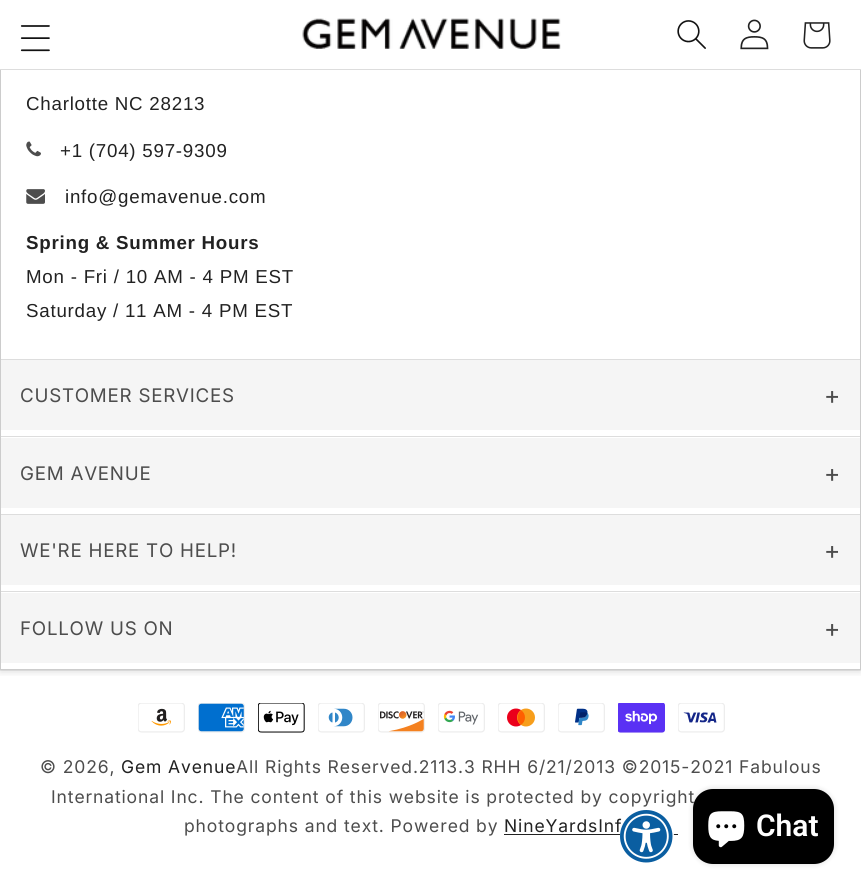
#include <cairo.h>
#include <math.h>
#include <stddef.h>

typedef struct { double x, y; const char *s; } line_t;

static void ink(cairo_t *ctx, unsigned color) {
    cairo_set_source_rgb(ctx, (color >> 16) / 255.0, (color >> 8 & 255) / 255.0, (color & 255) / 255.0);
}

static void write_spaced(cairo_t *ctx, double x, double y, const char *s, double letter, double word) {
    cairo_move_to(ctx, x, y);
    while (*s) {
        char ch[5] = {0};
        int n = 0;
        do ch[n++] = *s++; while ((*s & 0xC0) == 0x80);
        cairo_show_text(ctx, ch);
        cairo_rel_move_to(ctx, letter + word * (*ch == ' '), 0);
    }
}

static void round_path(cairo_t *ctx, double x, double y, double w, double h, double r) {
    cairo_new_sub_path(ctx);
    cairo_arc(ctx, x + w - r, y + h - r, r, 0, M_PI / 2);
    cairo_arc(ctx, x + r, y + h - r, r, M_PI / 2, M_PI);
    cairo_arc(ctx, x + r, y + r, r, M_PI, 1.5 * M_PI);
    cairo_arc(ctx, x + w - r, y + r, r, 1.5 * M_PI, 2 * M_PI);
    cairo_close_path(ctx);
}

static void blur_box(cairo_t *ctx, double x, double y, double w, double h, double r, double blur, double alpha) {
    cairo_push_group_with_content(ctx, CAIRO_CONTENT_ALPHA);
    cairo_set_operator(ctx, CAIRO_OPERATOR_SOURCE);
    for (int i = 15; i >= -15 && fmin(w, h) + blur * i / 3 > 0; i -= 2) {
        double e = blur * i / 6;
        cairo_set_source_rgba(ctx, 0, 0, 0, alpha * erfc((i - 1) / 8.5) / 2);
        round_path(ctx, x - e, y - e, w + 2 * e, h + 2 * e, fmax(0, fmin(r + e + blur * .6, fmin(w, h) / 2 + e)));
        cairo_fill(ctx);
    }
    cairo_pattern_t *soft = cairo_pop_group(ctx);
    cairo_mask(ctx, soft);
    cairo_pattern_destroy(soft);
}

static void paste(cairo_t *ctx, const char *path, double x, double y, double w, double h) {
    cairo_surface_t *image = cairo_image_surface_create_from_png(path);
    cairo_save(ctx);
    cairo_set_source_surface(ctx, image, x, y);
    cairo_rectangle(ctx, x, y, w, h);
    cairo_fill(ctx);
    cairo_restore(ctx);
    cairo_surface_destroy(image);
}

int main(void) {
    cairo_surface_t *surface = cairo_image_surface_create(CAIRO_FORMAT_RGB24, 861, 889);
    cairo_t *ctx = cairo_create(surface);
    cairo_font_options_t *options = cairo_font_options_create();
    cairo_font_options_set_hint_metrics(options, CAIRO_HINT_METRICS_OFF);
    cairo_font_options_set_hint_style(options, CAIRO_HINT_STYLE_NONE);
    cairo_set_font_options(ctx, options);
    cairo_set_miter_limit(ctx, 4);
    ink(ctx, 0xFFFFFF);
    cairo_paint(ctx);
    ink(ctx, 0xECECEC);
    cairo_rectangle(ctx, 0, 670, 861, 1);
    cairo_fill(ctx);
    cairo_save(ctx);
    cairo_rectangle(ctx, 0, 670, 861, 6);
    cairo_clip(ctx);
    ink(ctx, 0x000000);
    blur_box(ctx, 0, -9, 861, 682, 0, 3, 0.1);
    cairo_restore(ctx);
    cairo_rectangle(ctx, 0.5, -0.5, 860, 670);
    ink(ctx, 0xCCCCCC);
    cairo_set_line_width(ctx, 1);
    cairo_stroke(ctx);
    ink(ctx, 0xFFFFFF);
    cairo_rectangle(ctx, 0, 0, 861, 69);
    cairo_fill(ctx);
    ink(ctx, 0xDDDDDD);
    cairo_rectangle(ctx, 0, 69, 861, 1);
    cairo_fill(ctx);
    paste(ctx, "media/1.png", 20, 25, 30, 27);
    paste(ctx, "media/2.png", 302, 18, 259, 31);
    paste(ctx, "media/3.png", 677, 20, 29, 29);
    paste(ctx, "media/4.png", 740, 19, 29, 31);
    paste(ctx, "media/5.png", 803, 22, 28, 27);
    cairo_select_font_face(ctx, "Liberation Sans", CAIRO_FONT_SLANT_NORMAL, CAIRO_FONT_WEIGHT_NORMAL);
    cairo_set_font_size(ctx, 18.75);
    ink(ctx, 0x222222);
    write_spaced(ctx, 26, 110, "Charlotte NC 28213", 0.75, 0);
    paste(ctx, "media/6.png", 26, 141, 15, 16);
    write_spaced(ctx, 60, 157, "+1 (704) 597-9309", 0.75, 0);
    paste(ctx, "media/7.png", 26, 189, 19, 15);
    write_spaced(ctx, 65, 203, "info@gemavenue.com", 0.75, 0);
    cairo_select_font_face(ctx, "Liberation Sans", CAIRO_FONT_SLANT_NORMAL, CAIRO_FONT_WEIGHT_BOLD);
    write_spaced(ctx, 26, 249, "Spring & Summer Hours", 0.75, 0);
    cairo_select_font_face(ctx, "Liberation Sans", CAIRO_FONT_SLANT_NORMAL, CAIRO_FONT_WEIGHT_NORMAL);
    write_spaced(ctx, 26, 283, "Mon - Fri / 10 AM - 4 PM EST", 0.75, 0);
    write_spaced(ctx, 26, 317, "Saturday / 11 AM - 4 PM EST", 0.75, 0);
    ink(ctx, 0xDDDDDD);
    cairo_rectangle(ctx, 1, 359, 859, 1);
    cairo_fill(ctx);
    ink(ctx, 0xF5F5F5);
    cairo_rectangle(ctx, 1, 360, 859, 70);
    cairo_fill(ctx);
    cairo_select_font_face(ctx, "Inter", CAIRO_FONT_SLANT_NORMAL, CAIRO_FONT_WEIGHT_NORMAL);
    ink(ctx, 0x4D4D4D);
    write_spaced(ctx, 20, 402, "CUSTOMER SERVICES", 0.75, 0);
    cairo_select_font_face(ctx, "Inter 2", CAIRO_FONT_SLANT_NORMAL, CAIRO_FONT_WEIGHT_NORMAL);
    cairo_set_font_size(ctx, 25);
    write_spaced(ctx, 824, 404, "+", 0.75, 0);
    ink(ctx, 0xDDDDDD);
    cairo_rectangle(ctx, 1, 436, 859, 1);
    cairo_fill(ctx);
    ink(ctx, 0xF5F5F5);
    cairo_rectangle(ctx, 1, 438, 859, 70);
    cairo_fill(ctx);
    cairo_select_font_face(ctx, "Inter", CAIRO_FONT_SLANT_NORMAL, CAIRO_FONT_WEIGHT_NORMAL);
    cairo_set_font_size(ctx, 18.75);
    ink(ctx, 0x4D4D4D);
    write_spaced(ctx, 20, 480, "GEM AVENUE", 0.75, 0);
    cairo_select_font_face(ctx, "Inter 2", CAIRO_FONT_SLANT_NORMAL, CAIRO_FONT_WEIGHT_NORMAL);
    cairo_set_font_size(ctx, 25);
    write_spaced(ctx, 824, 482, "+", 0.75, 0);
    ink(ctx, 0xDDDDDD);
    cairo_rectangle(ctx, 1, 514, 859, 1);
    cairo_fill(ctx);
    ink(ctx, 0xF5F5F5);
    cairo_rectangle(ctx, 1, 515, 859, 70);
    cairo_fill(ctx);
    cairo_select_font_face(ctx, "Inter", CAIRO_FONT_SLANT_NORMAL, CAIRO_FONT_WEIGHT_NORMAL);
    cairo_set_font_size(ctx, 18.75);
    ink(ctx, 0x4D4D4D);
    write_spaced(ctx, 20, 557, "WE'RE HERE TO HELP!", 0.75, 0);
    cairo_select_font_face(ctx, "Inter 2", CAIRO_FONT_SLANT_NORMAL, CAIRO_FONT_WEIGHT_NORMAL);
    cairo_set_font_size(ctx, 25);
    write_spaced(ctx, 824, 559, "+", 0.75, 0);
    ink(ctx, 0xDDDDDD);
    cairo_rectangle(ctx, 1, 591, 859, 1);
    cairo_fill(ctx);
    ink(ctx, 0xF5F5F5);
    cairo_rectangle(ctx, 1, 593, 859, 70);
    cairo_fill(ctx);
    cairo_select_font_face(ctx, "Inter", CAIRO_FONT_SLANT_NORMAL, CAIRO_FONT_WEIGHT_NORMAL);
    cairo_set_font_size(ctx, 18.75);
    ink(ctx, 0x4D4D4D);
    write_spaced(ctx, 20, 635, "FOLLOW US ON", 0.75, 0);
    cairo_select_font_face(ctx, "Inter 2", CAIRO_FONT_SLANT_NORMAL, CAIRO_FONT_WEIGHT_NORMAL);
    cairo_set_font_size(ctx, 25);
    write_spaced(ctx, 824, 637, "+", 0.75, 0);
    paste(ctx, "media/8.png", 138, 703, 47, 30);
    paste(ctx, "media/9.png", 198, 703, 47, 30);
    paste(ctx, "media/10.png", 258, 703, 47, 30);
    paste(ctx, "media/11.png", 318, 703, 47, 30);
    paste(ctx, "media/12.png", 378, 703, 47, 30);
    paste(ctx, "media/13.png", 438, 703, 47, 30);
    paste(ctx, "media/14.png", 498, 703, 47, 30);
    paste(ctx, "media/15.png", 558, 703, 47, 30);
    paste(ctx, "media/16.png", 618, 703, 47, 30);
    paste(ctx, "media/17.png", 678, 703, 47, 30);
    cairo_select_font_face(ctx, "Inter", CAIRO_FONT_SLANT_NORMAL, CAIRO_FONT_WEIGHT_NORMAL);
    cairo_set_font_size(ctx, 17.5);
    write_spaced(ctx, 40, 773, "© 2026,", 0.88, 0);
    ink(ctx, 0x222222);
    write_spaced(ctx, 121, 773, "Gem Avenue", 0.88, 0);
    ink(ctx, 0x4D4D4D);
    {
        static const line_t items[] = {
            {236, 773, "All Rights Reserved.2113.3 RHH 6/21/2013 ©2015-2021 Fabulous"},
            {51, 803, "International Inc. The content of this website is protected by copyright"},
            {184, 832, "photographs and text. Powered by"},
        };
        for (size_t i = 0; i < sizeof items / sizeof *items; i++) {
            write_spaced(ctx, items[i].x, items[i].y, items[i].s, 0.88, 0);
        }
    }
    ink(ctx, 0x222222);
    write_spaced(ctx, 504, 832, "NineYardsInf", 0.88, 0);
    cairo_rectangle(ctx, 504, 834, 174, 1);
    cairo_fill(ctx);
    ink(ctx, 0xFFFFFF);
    round_path(ctx, 620, 810, 54, 55, 27);
    cairo_fill(ctx);
    paste(ctx, "media/18.png", 620, 810, 53, 53);
    ink(ctx, 0x000000);
    blur_box(ctx, 693, 789, 141, 75, 20, 3, 0.15);
    ink(ctx, 0x000000);
    round_path(ctx, 693, 789, 141, 75, 20);
    cairo_fill(ctx);
    paste(ctx, "media/19.png", 708, 811, 37, 37);
    cairo_select_font_face(ctx, "Roboto SemiBold", CAIRO_FONT_SLANT_NORMAL, CAIRO_FONT_WEIGHT_NORMAL);
    cairo_set_font_size(ctx, 30);
    ink(ctx, 0xFFFFFF);
    cairo_move_to(ctx, 756, 836);
    cairo_show_text(ctx, "Chat");
    cairo_surface_write_to_png(surface, "image.png");
    cairo_font_options_destroy(options);
    cairo_destroy(ctx);
    cairo_surface_destroy(surface);
    return 0;
}
